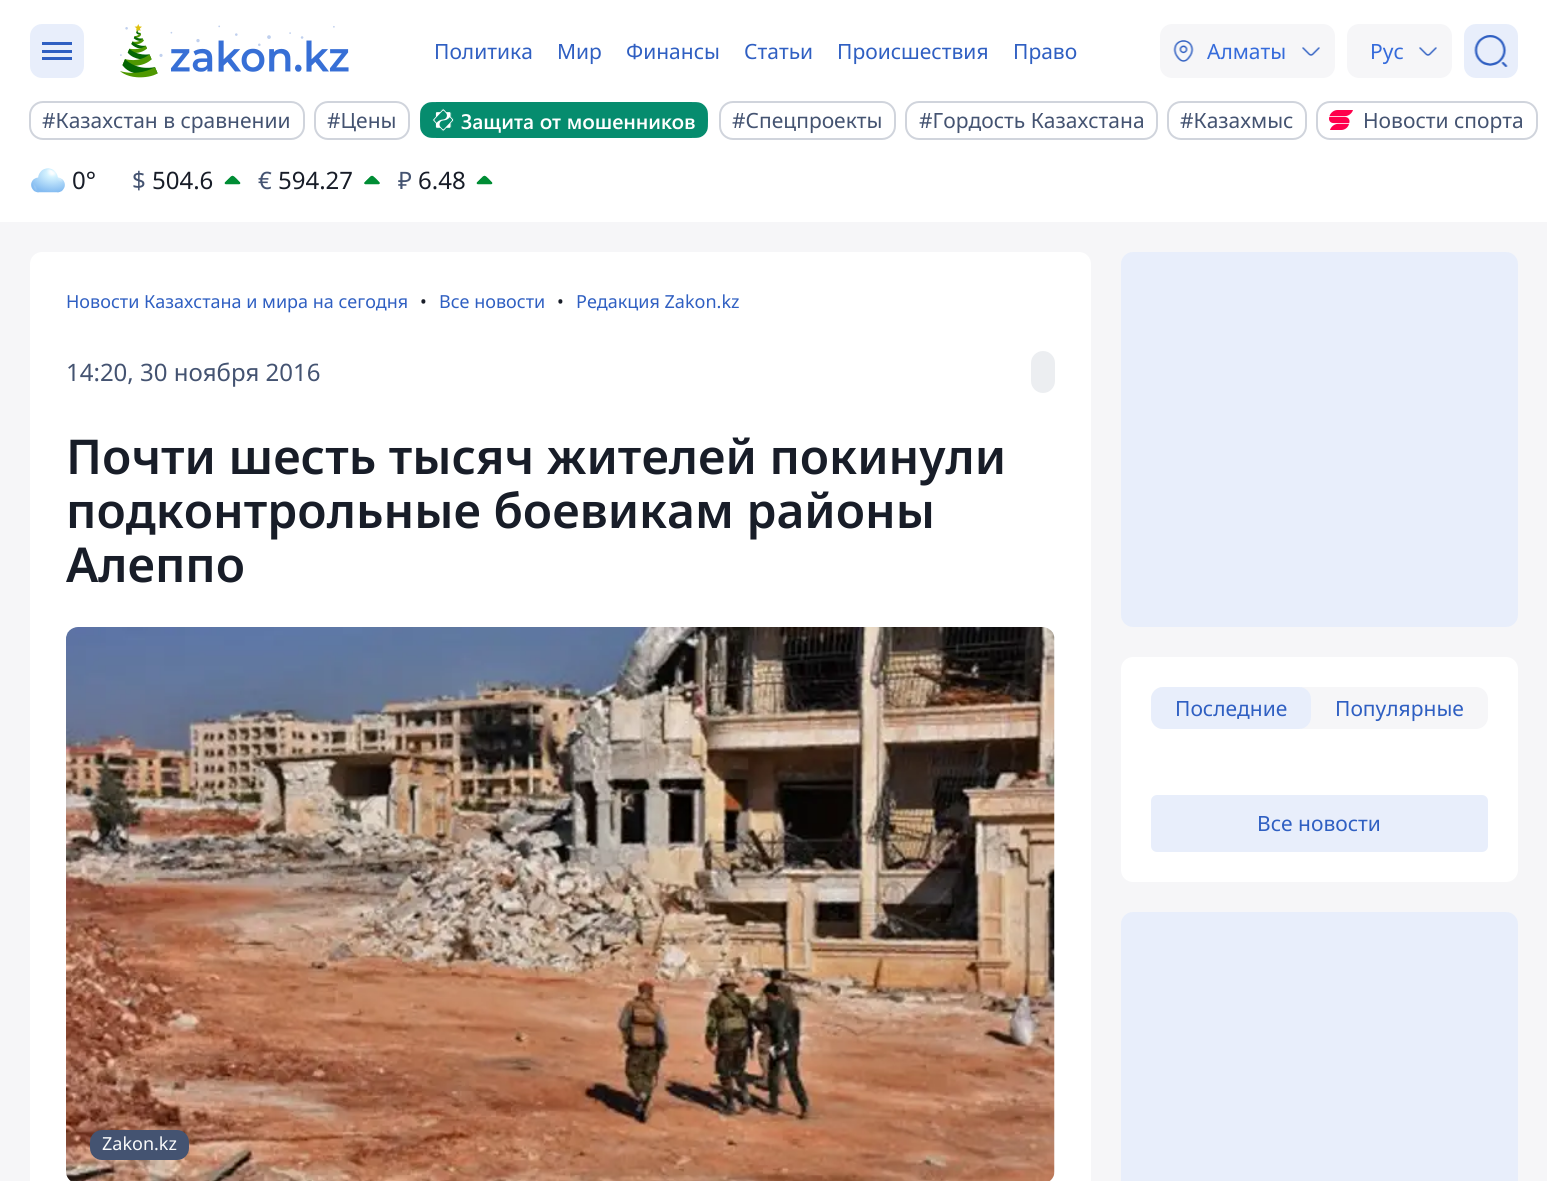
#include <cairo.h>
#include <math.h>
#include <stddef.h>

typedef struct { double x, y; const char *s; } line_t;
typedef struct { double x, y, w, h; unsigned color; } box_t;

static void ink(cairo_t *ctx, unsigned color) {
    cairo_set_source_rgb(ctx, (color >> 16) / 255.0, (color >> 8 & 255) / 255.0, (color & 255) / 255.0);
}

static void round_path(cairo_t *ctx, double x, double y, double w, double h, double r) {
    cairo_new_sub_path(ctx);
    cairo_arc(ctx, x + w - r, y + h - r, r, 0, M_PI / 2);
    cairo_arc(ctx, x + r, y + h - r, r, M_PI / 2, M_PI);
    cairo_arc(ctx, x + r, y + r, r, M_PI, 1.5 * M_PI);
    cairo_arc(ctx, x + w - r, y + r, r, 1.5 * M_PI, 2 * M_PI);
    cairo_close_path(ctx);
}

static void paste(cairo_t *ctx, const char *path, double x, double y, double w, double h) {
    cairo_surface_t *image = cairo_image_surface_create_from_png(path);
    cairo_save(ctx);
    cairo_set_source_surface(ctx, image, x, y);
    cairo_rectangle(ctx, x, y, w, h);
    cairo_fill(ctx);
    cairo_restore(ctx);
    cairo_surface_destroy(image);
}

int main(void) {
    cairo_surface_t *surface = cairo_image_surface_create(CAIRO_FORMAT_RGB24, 1547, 1181);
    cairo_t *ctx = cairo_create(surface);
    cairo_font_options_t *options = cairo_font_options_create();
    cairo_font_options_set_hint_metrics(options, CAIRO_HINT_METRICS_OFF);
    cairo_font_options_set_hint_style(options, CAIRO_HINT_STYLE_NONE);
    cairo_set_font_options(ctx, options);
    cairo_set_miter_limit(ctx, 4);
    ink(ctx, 0xF6F6F8);
    cairo_paint(ctx);
    ink(ctx, 0xFFFFFF);
    cairo_rectangle(ctx, 0, 0, 1547, 222);
    cairo_fill(ctx);
    ink(ctx, 0xE8EEFB);
    round_path(ctx, 30, 24, 54, 54, 12);
    cairo_fill(ctx);
    {
        static const box_t items[] = {
            {42, 42, 30, 3, 0x2F5FC2},
            {42, 50, 30, 3, 0x2F5FC2},
            {42, 57, 30, 3, 0x2F5FC2},
        };
        for (size_t i = 0; i < sizeof items / sizeof *items; i++) {
            ink(ctx, items[i].color);
            cairo_rectangle(ctx, items[i].x, items[i].y, items[i].w, items[i].h);
            cairo_fill(ctx);
        }
    }
    paste(ctx, "media/1.png", 120, 24, 229, 54);
    cairo_select_font_face(ctx, "Noto Sans", CAIRO_FONT_SLANT_NORMAL, CAIRO_FONT_WEIGHT_NORMAL);
    cairo_set_font_size(ctx, 21);
    {
        static const line_t items[] = {
            {434, 59, "Политика"},
            {557, 59, "Мир"},
            {626, 59, "Финансы"},
            {744, 59, "Статьи"},
            {837, 59, "Происшествия"},
            {1013, 59, "Право"},
        };
        for (size_t i = 0; i < sizeof items / sizeof *items; i++) {
            cairo_move_to(ctx, items[i].x, items[i].y);
            cairo_show_text(ctx, items[i].s);
        }
    }
    ink(ctx, 0xF6F6F8);
    round_path(ctx, 1160, 24, 175, 54, 12);
    cairo_fill(ctx);
    paste(ctx, "media/2.png", 1173, 40, 21, 22);
    ink(ctx, 0x356BDB);
    cairo_move_to(ctx, 1207, 59);
    cairo_show_text(ctx, "Алматы");
    paste(ctx, "media/3.png", 1302, 47, 18, 9);
    ink(ctx, 0xF6F6F8);
    round_path(ctx, 1347, 24, 105, 54, 12);
    cairo_fill(ctx);
    ink(ctx, 0x356BDB);
    cairo_move_to(ctx, 1370, 59);
    cairo_show_text(ctx, "Рус");
    paste(ctx, "media/3.png", 1419, 47, 18, 9);
    ink(ctx, 0xE8EEFB);
    round_path(ctx, 1464, 24, 54, 54, 12);
    cairo_fill(ctx);
    paste(ctx, "media/4.png", 1474, 35, 34, 32);
    round_path(ctx, 30, 102, 274, 37, 13);
    ink(ctx, 0xD0D4DC);
    cairo_stroke(ctx);
    ink(ctx, 0x445371);
    cairo_move_to(ctx, 42, 128);
    cairo_show_text(ctx, "#Казахстан в сравнении");
    round_path(ctx, 315, 102, 94, 37, 13);
    ink(ctx, 0xD0D4DC);
    cairo_stroke(ctx);
    ink(ctx, 0x445371);
    cairo_move_to(ctx, 327, 128);
    cairo_show_text(ctx, "#Цены");
    paste(ctx, "media/5.png", 420, 102, 288, 36);
    round_path(ctx, 720, 102, 175, 37, 13);
    ink(ctx, 0xD0D4DC);
    cairo_stroke(ctx);
    ink(ctx, 0x445371);
    cairo_move_to(ctx, 732, 128);
    cairo_show_text(ctx, "#Спецпроекты");
    round_path(ctx, 906, 102, 251, 37, 13);
    ink(ctx, 0xD0D4DC);
    cairo_stroke(ctx);
    ink(ctx, 0x445371);
    cairo_move_to(ctx, 919, 128);
    cairo_show_text(ctx, "#Гордость Казахстана");
    round_path(ctx, 1168, 102, 138, 37, 13);
    ink(ctx, 0xD0D4DC);
    cairo_stroke(ctx);
    ink(ctx, 0x445371);
    cairo_move_to(ctx, 1180, 128);
    cairo_show_text(ctx, "#Казахмыс");
    paste(ctx, "media/6.png", 1329, 110, 24, 20);
    round_path(ctx, 1317, 102, 220, 37, 13);
    ink(ctx, 0xD0D4DC);
    cairo_stroke(ctx);
    ink(ctx, 0x445371);
    cairo_move_to(ctx, 1363, 128);
    cairo_show_text(ctx, "Новости спорта");
    paste(ctx, "media/7.png", 31, 168, 34, 25);
    cairo_set_font_size(ctx, 24);
    ink(ctx, 0x181D28);
    cairo_move_to(ctx, 72, 189);
    cairo_show_text(ctx, "0°");
    ink(ctx, 0x445371);
    cairo_move_to(ctx, 132, 189);
    cairo_show_text(ctx, "$");
    ink(ctx, 0x181D28);
    cairo_move_to(ctx, 152, 189);
    cairo_show_text(ctx, "504.6");
    paste(ctx, "media/8.png", 224, 175, 17, 10);
    ink(ctx, 0x445371);
    cairo_move_to(ctx, 258, 189);
    cairo_show_text(ctx, "€");
    ink(ctx, 0x181D28);
    cairo_move_to(ctx, 278, 189);
    cairo_show_text(ctx, "594.27");
    paste(ctx, "media/9.png", 364, 175, 16, 10);
    ink(ctx, 0x445371);
    cairo_move_to(ctx, 398, 189);
    cairo_show_text(ctx, "₽");
    ink(ctx, 0x181D28);
    cairo_move_to(ctx, 418, 189);
    cairo_show_text(ctx, "6.48");
    paste(ctx, "media/8.png", 476, 175, 17, 10);
    ink(ctx, 0xFFFFFF);
    round_path(ctx, 30, 252, 1061, 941, 12);
    cairo_fill(ctx);
    cairo_set_font_size(ctx, 18);
    ink(ctx, 0x2F5FC2);
    cairo_move_to(ctx, 66, 308);
    cairo_show_text(ctx, "Новости Казахстана и мира на сегодня");
    ink(ctx, 0x181D28);
    cairo_move_to(ctx, 420, 308);
    cairo_show_text(ctx, "•");
    ink(ctx, 0x2F5FC2);
    cairo_move_to(ctx, 439, 308);
    cairo_show_text(ctx, "Все новости");
    ink(ctx, 0x181D28);
    cairo_move_to(ctx, 557, 308);
    cairo_show_text(ctx, "•");
    ink(ctx, 0x2F5FC2);
    cairo_move_to(ctx, 576, 308);
    cairo_show_text(ctx, "Редакция Zakon.kz");
    cairo_set_font_size(ctx, 24);
    ink(ctx, 0x445371);
    cairo_move_to(ctx, 66, 381);
    cairo_show_text(ctx, "14:20, 30 ноября 2016");
    ink(ctx, 0xECEEF1);
    round_path(ctx, 1031, 351, 24, 42, 12);
    cairo_fill(ctx);
    cairo_select_font_face(ctx, "Noto Sans SemiBold", CAIRO_FONT_SLANT_NORMAL, CAIRO_FONT_WEIGHT_NORMAL);
    cairo_set_font_size(ctx, 48);
    ink(ctx, 0x181D28);
    {
        static const line_t items[] = {
            {66, 474, "Почти шесть тысяч жителей покинули"},
            {66, 528, "подконтрольные боевикам районы"},
            {66, 582, "Алеппо"},
        };
        for (size_t i = 0; i < sizeof items / sizeof *items; i++) {
            cairo_move_to(ctx, items[i].x, items[i].y);
            cairo_show_text(ctx, items[i].s);
        }
    }
    paste(ctx, "media/10.png", 66, 627, 989, 554);
    ink(ctx, 0x445371);
    round_path(ctx, 90, 1130, 99, 30, 12);
    cairo_fill(ctx);
    cairo_select_font_face(ctx, "Noto Sans", CAIRO_FONT_SLANT_NORMAL, CAIRO_FONT_WEIGHT_NORMAL);
    cairo_set_font_size(ctx, 18);
    ink(ctx, 0xF9FAFB);
    cairo_move_to(ctx, 102, 1150);
    cairo_show_text(ctx, "Zakon.kz");
    ink(ctx, 0xE8EEFB);
    round_path(ctx, 1121, 252, 397, 375, 12);
    cairo_fill(ctx);
    ink(ctx, 0xFFFFFF);
    round_path(ctx, 1121, 657, 397, 225, 12);
    cairo_fill(ctx);
    ink(ctx, 0xF6F6F8);
    round_path(ctx, 1151, 687, 337, 42, 12);
    cairo_fill(ctx);
    ink(ctx, 0xE8EEFB);
    round_path(ctx, 1151, 687, 160, 42, 12);
    cairo_fill(ctx);
    cairo_set_font_size(ctx, 21);
    ink(ctx, 0x2F5FC2);
    cairo_move_to(ctx, 1175, 716);
    cairo_show_text(ctx, "Последние");
    cairo_move_to(ctx, 1335, 716);
    cairo_show_text(ctx, "Популярные");
    ink(ctx, 0xE8EEFB);
    round_path(ctx, 1151, 795, 337, 57, 6);
    cairo_fill(ctx);
    ink(ctx, 0x2F5FC2);
    cairo_move_to(ctx, 1257, 831);
    cairo_show_text(ctx, "Все новости");
    ink(ctx, 0xE8EEFB);
    round_path(ctx, 1121, 912, 397, 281, 12);
    cairo_fill(ctx);
    cairo_surface_write_to_png(surface, "image.png");
    cairo_font_options_destroy(options);
    cairo_destroy(ctx);
    cairo_surface_destroy(surface);
    return 0;
}
